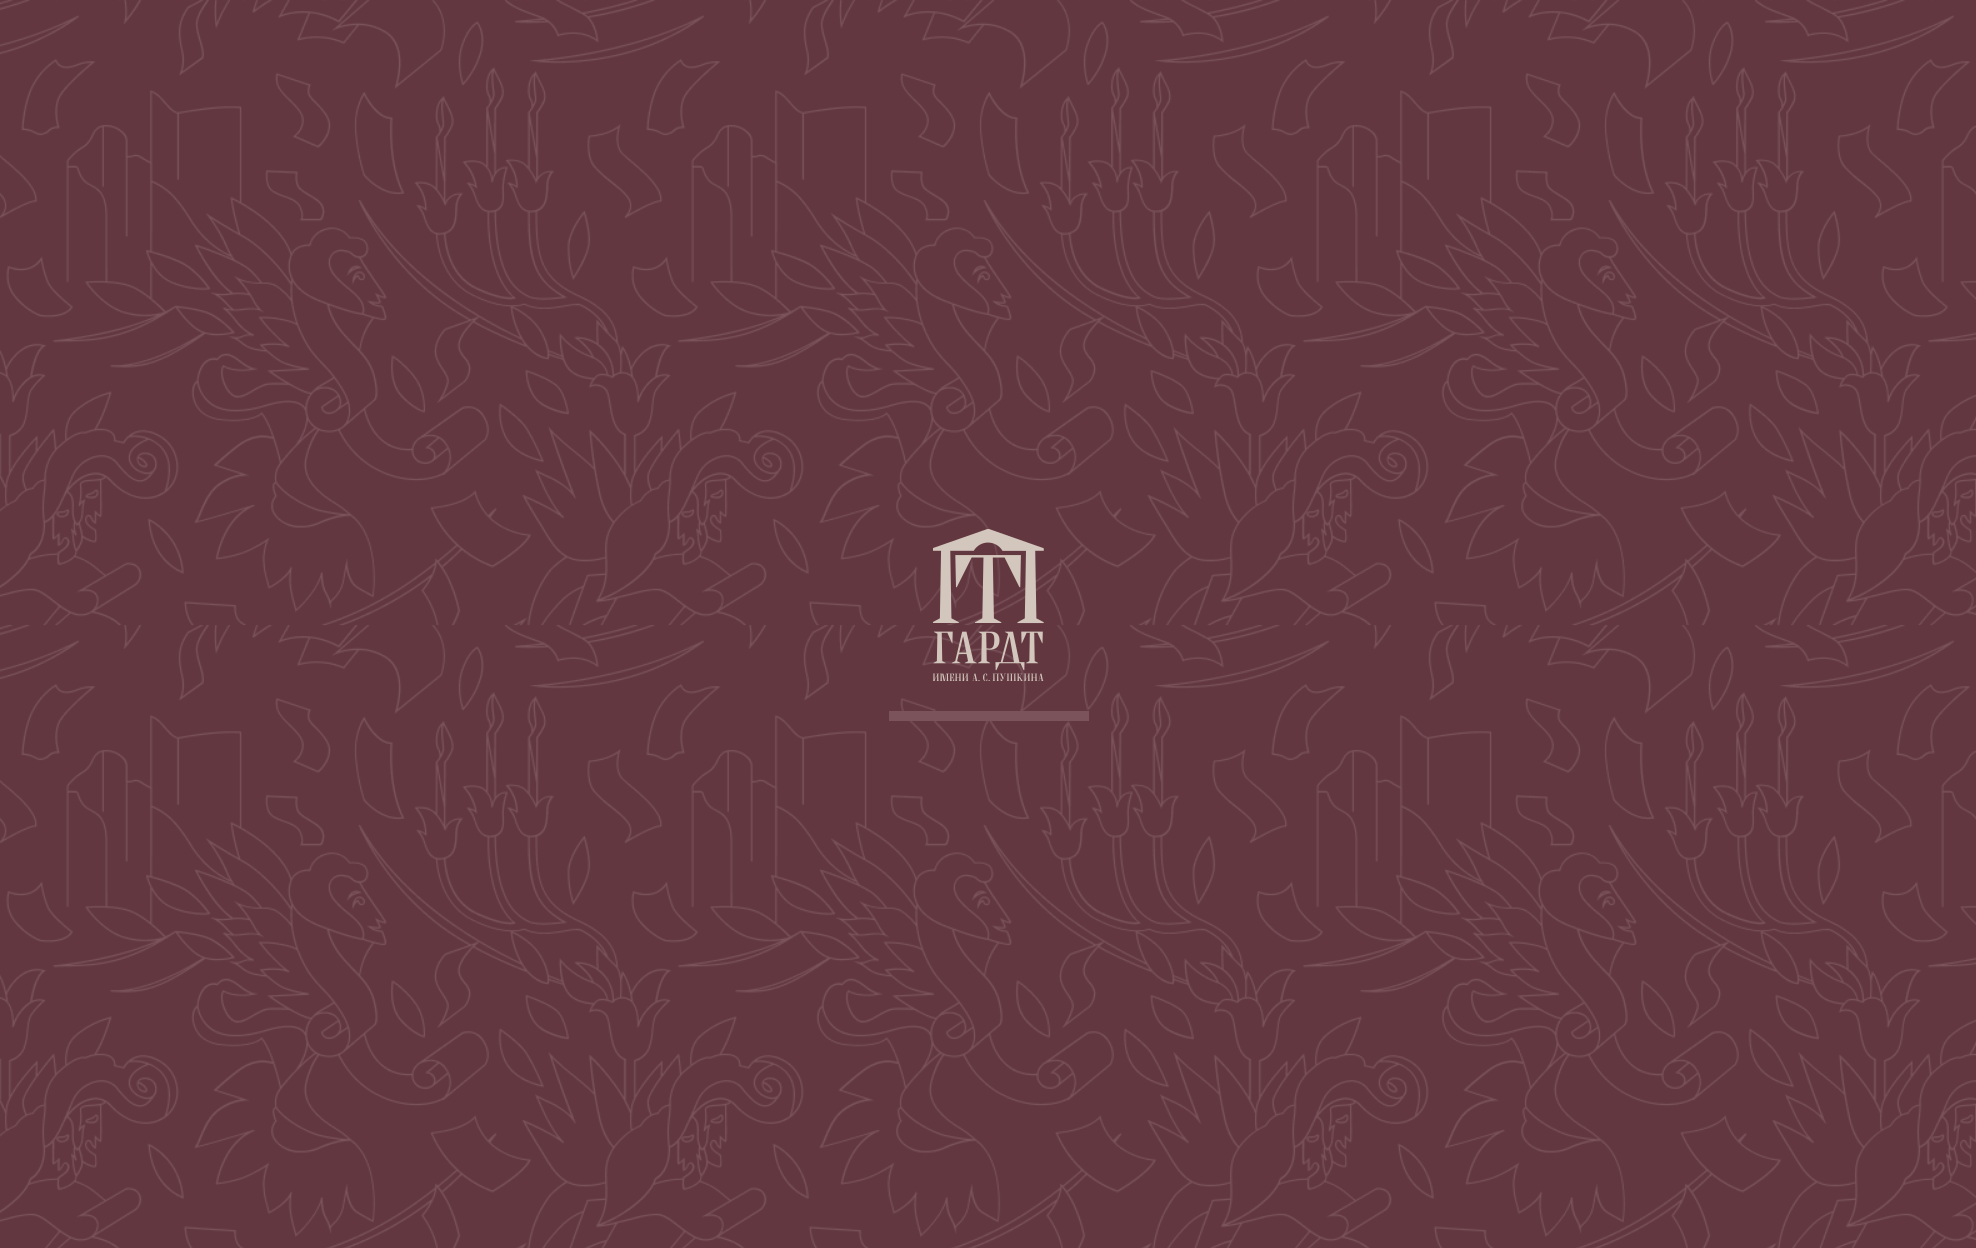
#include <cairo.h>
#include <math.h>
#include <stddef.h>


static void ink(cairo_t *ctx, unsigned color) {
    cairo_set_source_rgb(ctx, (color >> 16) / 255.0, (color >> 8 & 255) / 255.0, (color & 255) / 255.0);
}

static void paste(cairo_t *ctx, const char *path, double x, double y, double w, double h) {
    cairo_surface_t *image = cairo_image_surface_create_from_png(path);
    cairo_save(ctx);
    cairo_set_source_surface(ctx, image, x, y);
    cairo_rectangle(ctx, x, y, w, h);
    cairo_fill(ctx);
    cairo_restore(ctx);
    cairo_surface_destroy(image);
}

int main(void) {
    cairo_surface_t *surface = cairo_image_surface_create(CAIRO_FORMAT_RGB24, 1976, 1248);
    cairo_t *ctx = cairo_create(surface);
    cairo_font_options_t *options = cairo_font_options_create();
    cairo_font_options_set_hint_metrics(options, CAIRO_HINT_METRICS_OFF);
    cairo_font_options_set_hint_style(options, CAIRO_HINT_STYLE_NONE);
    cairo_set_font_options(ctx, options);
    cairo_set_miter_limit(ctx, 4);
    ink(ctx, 0xFFFFFF);
    cairo_paint(ctx);
    paste(ctx, "media/1.png", 0, 0, 1976, 1248);
    paste(ctx, "media/2.png", 933, 529, 111, 152);
    ink(ctx, 0x7B535B);
    cairo_rectangle(ctx, 889, 711, 200, 10);
    cairo_fill(ctx);
    cairo_surface_write_to_png(surface, "image.png");
    cairo_font_options_destroy(options);
    cairo_destroy(ctx);
    cairo_surface_destroy(surface);
    return 0;
}
